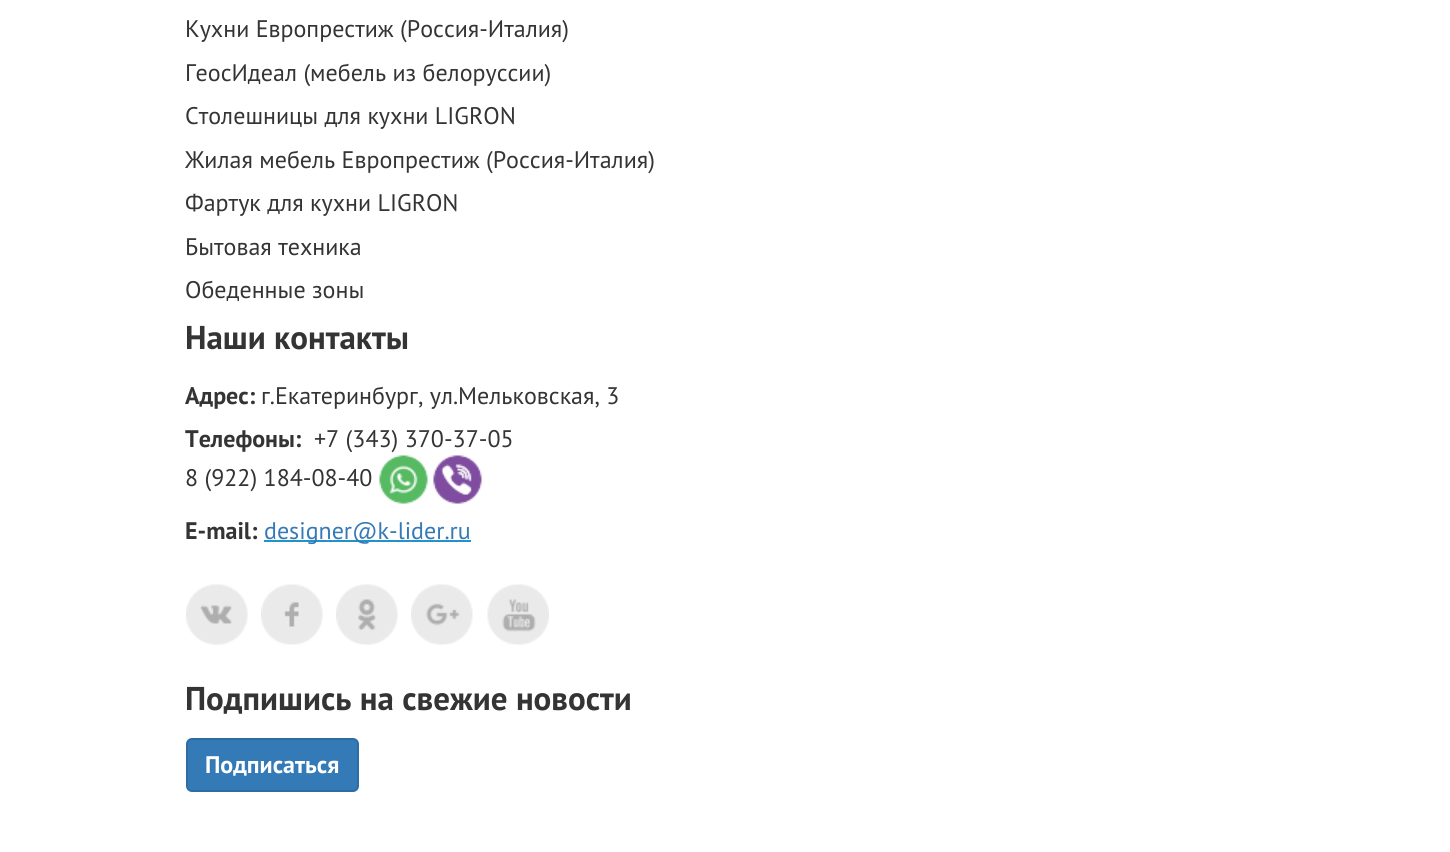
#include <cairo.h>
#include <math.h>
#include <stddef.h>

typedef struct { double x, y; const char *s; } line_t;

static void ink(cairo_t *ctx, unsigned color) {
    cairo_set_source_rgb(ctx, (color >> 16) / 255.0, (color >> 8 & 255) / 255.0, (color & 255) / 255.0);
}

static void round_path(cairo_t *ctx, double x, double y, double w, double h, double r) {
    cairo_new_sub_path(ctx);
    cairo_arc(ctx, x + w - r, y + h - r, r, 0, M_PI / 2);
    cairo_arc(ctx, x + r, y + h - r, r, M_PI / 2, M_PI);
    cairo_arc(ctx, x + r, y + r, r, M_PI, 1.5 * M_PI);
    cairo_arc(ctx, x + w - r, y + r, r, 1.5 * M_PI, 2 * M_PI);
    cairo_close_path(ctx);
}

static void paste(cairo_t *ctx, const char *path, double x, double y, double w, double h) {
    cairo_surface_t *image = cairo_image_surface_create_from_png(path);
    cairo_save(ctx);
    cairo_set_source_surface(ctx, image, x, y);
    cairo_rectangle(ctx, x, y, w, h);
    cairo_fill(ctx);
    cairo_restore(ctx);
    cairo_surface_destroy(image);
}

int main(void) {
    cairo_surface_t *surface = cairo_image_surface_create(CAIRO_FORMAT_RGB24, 1450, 852);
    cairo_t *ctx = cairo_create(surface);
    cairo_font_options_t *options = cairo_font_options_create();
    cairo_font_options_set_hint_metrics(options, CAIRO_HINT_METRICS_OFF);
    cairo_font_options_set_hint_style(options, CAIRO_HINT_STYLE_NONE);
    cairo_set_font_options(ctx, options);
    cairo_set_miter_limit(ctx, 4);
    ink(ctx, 0xFFFFFF);
    cairo_paint(ctx);
    cairo_select_font_face(ctx, "PT Sans", CAIRO_FONT_SLANT_NORMAL, CAIRO_FONT_WEIGHT_NORMAL);
    cairo_set_font_size(ctx, 24);
    ink(ctx, 0x343434);
    {
        static const line_t items[] = {
            {185, 37, "Кухни Европрестиж (Россия-Италия)"},
            {185, 81, "ГеосИдеал (мебель из белоруссии)"},
            {185, 124, "Столешницы для кухни LIGRON"},
            {185, 168, "Жилая мебель Европрестиж (Россия-Италия)"},
            {185, 211, "Фартук для кухни LIGRON"},
            {185, 255, "Бытовая техника"},
            {185, 298, "Обеденные зоны"},
        };
        for (size_t i = 0; i < sizeof items / sizeof *items; i++) {
            cairo_move_to(ctx, items[i].x, items[i].y);
            cairo_show_text(ctx, items[i].s);
        }
    }
    cairo_select_font_face(ctx, "PT Sans", CAIRO_FONT_SLANT_NORMAL, CAIRO_FONT_WEIGHT_BOLD);
    cairo_set_font_size(ctx, 33);
    cairo_move_to(ctx, 185, 349);
    cairo_show_text(ctx, "Наши контакты");
    cairo_set_font_size(ctx, 24);
    cairo_move_to(ctx, 185, 404);
    cairo_show_text(ctx, "Адрес:");
    cairo_select_font_face(ctx, "PT Sans", CAIRO_FONT_SLANT_NORMAL, CAIRO_FONT_WEIGHT_NORMAL);
    cairo_move_to(ctx, 261, 404);
    cairo_show_text(ctx, "г.Екатеринбург, ул.Мельковская, 3");
    cairo_select_font_face(ctx, "PT Sans", CAIRO_FONT_SLANT_NORMAL, CAIRO_FONT_WEIGHT_BOLD);
    cairo_move_to(ctx, 185, 447);
    cairo_show_text(ctx, "Телефоны:");
    cairo_select_font_face(ctx, "PT Sans", CAIRO_FONT_SLANT_NORMAL, CAIRO_FONT_WEIGHT_NORMAL);
    cairo_move_to(ctx, 314, 447);
    cairo_show_text(ctx, "+7 (343) 370-37-05");
    cairo_move_to(ctx, 185, 486);
    cairo_show_text(ctx, "8 (922) 184-08-40");
    paste(ctx, "media/1.png", 379, 455, 49, 49);
    paste(ctx, "media/2.png", 433, 455, 49, 49);
    cairo_select_font_face(ctx, "PT Sans", CAIRO_FONT_SLANT_NORMAL, CAIRO_FONT_WEIGHT_BOLD);
    cairo_move_to(ctx, 185, 539);
    cairo_show_text(ctx, "E-mail:");
    ink(ctx, 0x2491CB);
    cairo_rectangle(ctx, 264, 540, 207, 2);
    cairo_fill(ctx);
    cairo_select_font_face(ctx, "PT Sans", CAIRO_FONT_SLANT_NORMAL, CAIRO_FONT_WEIGHT_NORMAL);
    ink(ctx, 0x337AB7);
    cairo_move_to(ctx, 264, 539);
    cairo_show_text(ctx, "designer@k-lider.ru");
    paste(ctx, "media/3.png", 186, 584, 62, 61);
    paste(ctx, "media/4.png", 261, 584, 62, 61);
    paste(ctx, "media/5.png", 336, 584, 62, 61);
    paste(ctx, "media/6.png", 411, 584, 62, 61);
    paste(ctx, "media/7.png", 487, 584, 62, 61);
    cairo_select_font_face(ctx, "PT Sans", CAIRO_FONT_SLANT_NORMAL, CAIRO_FONT_WEIGHT_BOLD);
    cairo_set_font_size(ctx, 33);
    ink(ctx, 0x343434);
    cairo_move_to(ctx, 185, 710);
    cairo_show_text(ctx, "Подпишись на свежие новости");
    ink(ctx, 0x337AB7);
    round_path(ctx, 187, 739, 171, 52, 5);
    cairo_fill_preserve(ctx);
    ink(ctx, 0x2E6DA4);
    cairo_stroke(ctx);
    cairo_set_font_size(ctx, 24);
    ink(ctx, 0xFFFFFF);
    cairo_move_to(ctx, 205, 773);
    cairo_show_text(ctx, "Подписаться");
    cairo_surface_write_to_png(surface, "image.png");
    cairo_font_options_destroy(options);
    cairo_destroy(ctx);
    cairo_surface_destroy(surface);
    return 0;
}
